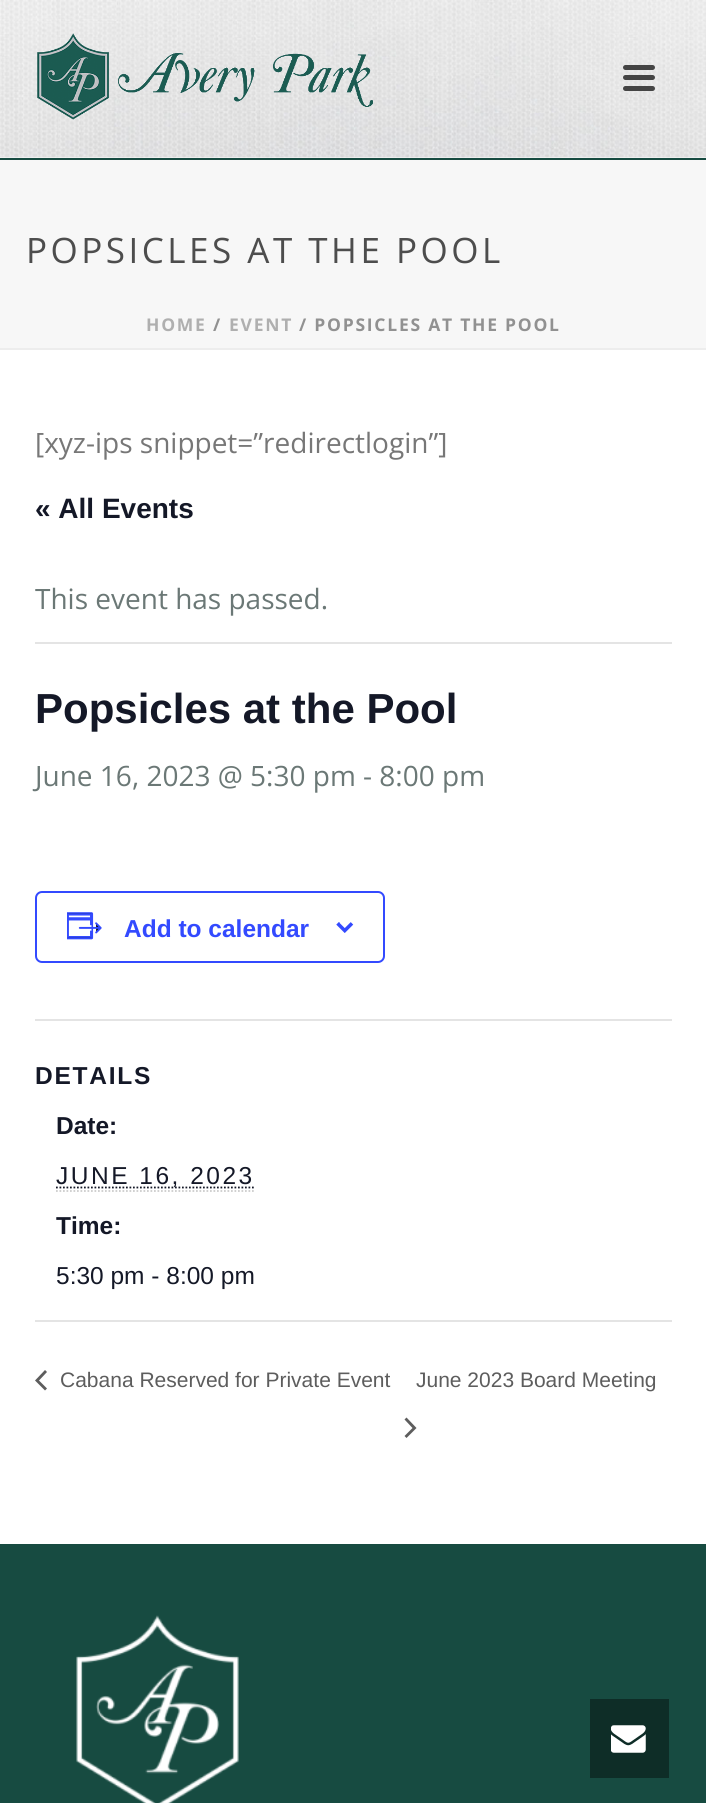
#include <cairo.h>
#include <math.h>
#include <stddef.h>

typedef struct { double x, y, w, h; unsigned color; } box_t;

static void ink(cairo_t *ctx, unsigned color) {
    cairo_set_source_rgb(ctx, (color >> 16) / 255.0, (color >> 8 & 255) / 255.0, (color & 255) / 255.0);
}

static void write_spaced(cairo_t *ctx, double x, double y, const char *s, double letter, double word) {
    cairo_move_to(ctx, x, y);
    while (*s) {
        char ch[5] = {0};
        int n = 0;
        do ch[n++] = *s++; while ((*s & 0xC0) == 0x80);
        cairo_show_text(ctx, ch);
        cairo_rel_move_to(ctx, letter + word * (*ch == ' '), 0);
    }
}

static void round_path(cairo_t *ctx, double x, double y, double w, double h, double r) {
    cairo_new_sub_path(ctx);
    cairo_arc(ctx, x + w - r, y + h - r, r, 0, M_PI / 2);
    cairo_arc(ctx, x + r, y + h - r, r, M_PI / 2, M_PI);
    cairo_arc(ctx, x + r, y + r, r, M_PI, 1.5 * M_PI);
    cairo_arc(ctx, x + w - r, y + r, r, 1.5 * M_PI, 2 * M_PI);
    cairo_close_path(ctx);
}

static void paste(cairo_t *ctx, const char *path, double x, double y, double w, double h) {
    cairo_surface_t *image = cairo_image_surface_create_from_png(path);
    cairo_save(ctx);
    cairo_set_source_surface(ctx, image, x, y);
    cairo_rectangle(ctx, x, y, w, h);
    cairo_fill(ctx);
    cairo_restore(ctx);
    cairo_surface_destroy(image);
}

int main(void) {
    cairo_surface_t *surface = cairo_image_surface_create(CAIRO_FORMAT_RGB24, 706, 1803);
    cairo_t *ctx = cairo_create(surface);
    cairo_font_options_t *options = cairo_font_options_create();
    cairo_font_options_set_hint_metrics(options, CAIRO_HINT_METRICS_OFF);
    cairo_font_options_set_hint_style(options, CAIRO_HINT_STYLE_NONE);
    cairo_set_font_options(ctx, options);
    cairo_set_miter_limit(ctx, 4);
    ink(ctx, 0xFFFFFF);
    cairo_paint(ctx);
    {
        static const box_t items[] = {
            {0, 160, 706, 188, 0xF7F7F7},
            {0, 348, 706, 2, 0xEDEDED},
            {0, 158, 706, 2, 0x174B41},
        };
        for (size_t i = 0; i < sizeof items / sizeof *items; i++) {
            ink(ctx, items[i].color);
            cairo_rectangle(ctx, items[i].x, items[i].y, items[i].w, items[i].h);
            cairo_fill(ctx);
        }
    }
    paste(ctx, "media/1.png", 0, 0, 706, 158);
    paste(ctx, "media/2.png", 37, 33, 336, 87);
    ink(ctx, 0x444444);
    round_path(ctx, 623, 65, 32, 5, 2.5);
    cairo_fill(ctx);
    round_path(ctx, 623, 75, 32, 5, 2.5);
    cairo_fill(ctx);
    round_path(ctx, 623, 86, 32, 5, 2.5);
    cairo_fill(ctx);
    cairo_select_font_face(ctx, "Open Sans", CAIRO_FONT_SLANT_NORMAL, CAIRO_FONT_WEIGHT_NORMAL);
    cairo_set_font_size(ctx, 35);
    ink(ctx, 0x4D4D4D);
    write_spaced(ctx, 26, 263, "POPSICLES AT THE POOL", 3.5, 0);
    cairo_select_font_face(ctx, "Open Sans", CAIRO_FONT_SLANT_NORMAL, CAIRO_FONT_WEIGHT_BOLD);
    cairo_set_font_size(ctx, 17.5);
    ink(ctx, 0xAFAFAF);
    write_spaced(ctx, 146, 331, "HOME", 1.75, 0);
    ink(ctx, 0x919191);
    write_spaced(ctx, 213, 331, "/", 1.75, 0);
    ink(ctx, 0xAFAFAF);
    write_spaced(ctx, 229, 331, "EVENT", 1.75, 0);
    ink(ctx, 0x919191);
    write_spaced(ctx, 299, 331, "/ POPSICLES AT THE POOL", 1.75, 0);
    cairo_select_font_face(ctx, "Open Sans", CAIRO_FONT_SLANT_NORMAL, CAIRO_FONT_WEIGHT_NORMAL);
    cairo_set_font_size(ctx, 28);
    ink(ctx, 0x777777);
    cairo_move_to(ctx, 35, 453);
    cairo_show_text(ctx, "[xyz-ips snippet=”redirectlogin”]");
    cairo_select_font_face(ctx, "Liberation Sans", CAIRO_FONT_SLANT_NORMAL, CAIRO_FONT_WEIGHT_BOLD);
    ink(ctx, 0x141827);
    cairo_move_to(ctx, 35, 518);
    cairo_show_text(ctx, "« All Events");
    ink(ctx, 0xE4E4E4);
    cairo_rectangle(ctx, 35, 642, 637, 2);
    cairo_fill(ctx);
    cairo_select_font_face(ctx, "Open Sans", CAIRO_FONT_SLANT_NORMAL, CAIRO_FONT_WEIGHT_NORMAL);
    ink(ctx, 0x6B7876);
    cairo_move_to(ctx, 35, 609);
    cairo_show_text(ctx, "This event has passed.");
    cairo_select_font_face(ctx, "Liberation Sans", CAIRO_FONT_SLANT_NORMAL, CAIRO_FONT_WEIGHT_BOLD);
    cairo_set_font_size(ctx, 42);
    ink(ctx, 0x141827);
    cairo_move_to(ctx, 35, 723);
    cairo_show_text(ctx, "Popsicles at the Pool");
    cairo_select_font_face(ctx, "Open Sans", CAIRO_FONT_SLANT_NORMAL, CAIRO_FONT_WEIGHT_NORMAL);
    cairo_set_font_size(ctx, 28);
    ink(ctx, 0x6B7876);
    cairo_move_to(ctx, 35, 786);
    cairo_show_text(ctx, "June 16, 2023 @ 5:30 pm - 8:00 pm");
    round_path(ctx, 36, 892, 348, 70, 6);
    ink(ctx, 0x334AFF);
    cairo_stroke(ctx);
    paste(ctx, "media/3.png", 67, 912, 35, 28);
    cairo_select_font_face(ctx, "Liberation Sans", CAIRO_FONT_SLANT_NORMAL, CAIRO_FONT_WEIGHT_BOLD);
    cairo_set_font_size(ctx, 24.5);
    cairo_move_to(ctx, 124, 937);
    cairo_show_text(ctx, "Add to calendar");
    paste(ctx, "media/4.png", 336, 922, 18, 11);
    ink(ctx, 0xE4E4E4);
    cairo_rectangle(ctx, 35, 1019, 637, 2);
    cairo_fill(ctx);
    ink(ctx, 0x141827);
    write_spaced(ctx, 35, 1084, "DETAILS", 1.75, 0);
    cairo_move_to(ctx, 56, 1134);
    cairo_show_text(ctx, "Date:");
    cairo_new_path(ctx);
    cairo_move_to(ctx, 56, 1187.5);
    cairo_line_to(ctx, 254, 1187.5);
    cairo_set_line_width(ctx, 1.8);
    cairo_set_dash(ctx, (double[]){1.75, 1.75}, 2, 0);
    cairo_stroke(ctx);
    cairo_select_font_face(ctx, "Liberation Sans", CAIRO_FONT_SLANT_NORMAL, CAIRO_FONT_WEIGHT_NORMAL);
    write_spaced(ctx, 56, 1184, "JUNE 16, 2023", 2.5, 0);
    cairo_new_path(ctx);
    cairo_move_to(ctx, 56, 1191);
    cairo_line_to(ctx, 254, 1191);
    ink(ctx, 0xCCCCCC);
    cairo_stroke(ctx);
    cairo_select_font_face(ctx, "Liberation Sans", CAIRO_FONT_SLANT_NORMAL, CAIRO_FONT_WEIGHT_BOLD);
    ink(ctx, 0x141827);
    cairo_move_to(ctx, 56, 1234);
    cairo_show_text(ctx, "Time:");
    cairo_select_font_face(ctx, "Liberation Sans", CAIRO_FONT_SLANT_NORMAL, CAIRO_FONT_WEIGHT_NORMAL);
    cairo_move_to(ctx, 56, 1284);
    cairo_show_text(ctx, "5:30 pm - 8:00 pm");
    ink(ctx, 0xE4E4E4);
    cairo_rectangle(ctx, 35, 1320, 637, 2);
    cairo_fill(ctx);
    ink(ctx, 0x5D5D5D);
    cairo_new_path(ctx);
    cairo_move_to(ctx, 47, 1388.5);
    cairo_line_to(ctx, 45, 1390.5);
    cairo_line_to(ctx, 35, 1380.5);
    cairo_line_to(ctx, 45, 1370);
    cairo_line_to(ctx, 47, 1372);
    cairo_line_to(ctx, 39, 1380.5);
    cairo_close_path(ctx);
    cairo_fill(ctx);
    cairo_set_font_size(ctx, 21);
    cairo_move_to(ctx, 60, 1387);
    cairo_show_text(ctx, "Cabana Reserved for Private Event");
    cairo_move_to(ctx, 416, 1387);
    cairo_show_text(ctx, "June 2023 Board Meeting");
    cairo_new_path(ctx);
    cairo_move_to(ctx, 404.5, 1419.5);
    cairo_line_to(ctx, 406.5, 1417.5);
    cairo_line_to(ctx, 416.5, 1428);
    cairo_line_to(ctx, 406.5, 1438);
    cairo_line_to(ctx, 404.5, 1436);
    cairo_line_to(ctx, 412.5, 1428);
    cairo_close_path(ctx);
    cairo_fill(ctx);
    ink(ctx, 0x174B41);
    cairo_rectangle(ctx, 0, 1544, 706, 259);
    cairo_fill(ctx);
    paste(ctx, "media/5.png", 76, 1615, 163, 188);
    ink(ctx, 0x0E2D27);
    cairo_rectangle(ctx, 590, 1699, 79, 79);
    cairo_fill(ctx);
    paste(ctx, "media/6.png", 611, 1725, 35, 28);
    cairo_surface_write_to_png(surface, "image.png");
    cairo_font_options_destroy(options);
    cairo_destroy(ctx);
    cairo_surface_destroy(surface);
    return 0;
}
